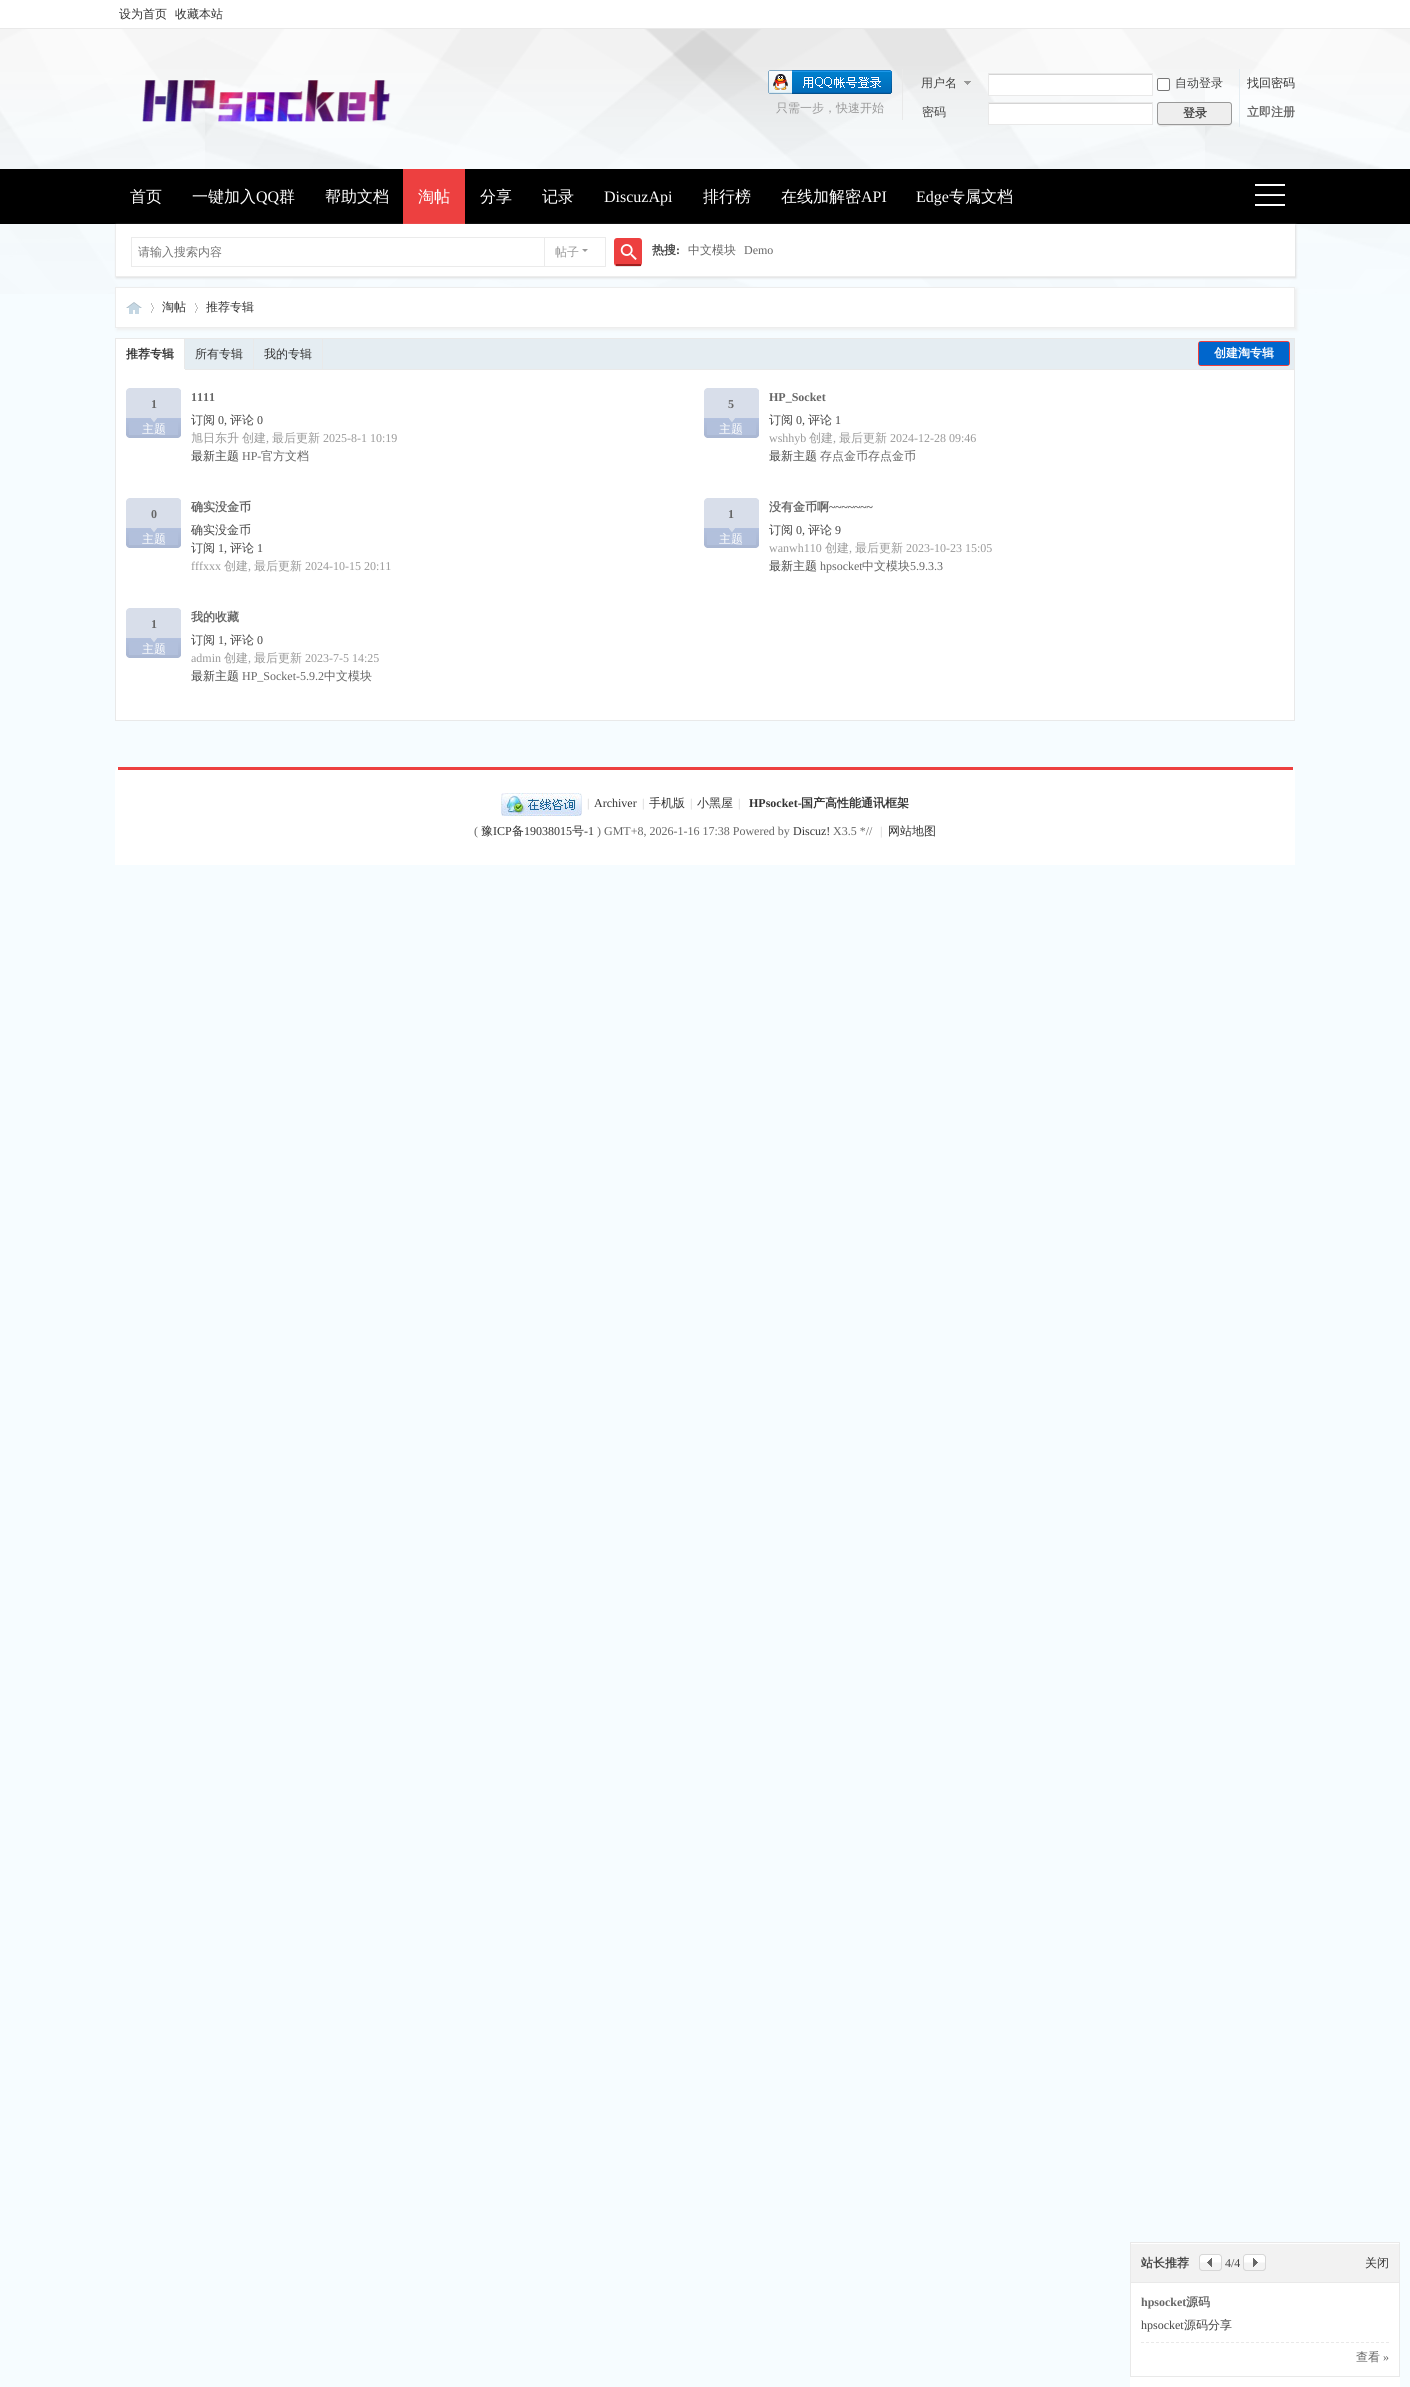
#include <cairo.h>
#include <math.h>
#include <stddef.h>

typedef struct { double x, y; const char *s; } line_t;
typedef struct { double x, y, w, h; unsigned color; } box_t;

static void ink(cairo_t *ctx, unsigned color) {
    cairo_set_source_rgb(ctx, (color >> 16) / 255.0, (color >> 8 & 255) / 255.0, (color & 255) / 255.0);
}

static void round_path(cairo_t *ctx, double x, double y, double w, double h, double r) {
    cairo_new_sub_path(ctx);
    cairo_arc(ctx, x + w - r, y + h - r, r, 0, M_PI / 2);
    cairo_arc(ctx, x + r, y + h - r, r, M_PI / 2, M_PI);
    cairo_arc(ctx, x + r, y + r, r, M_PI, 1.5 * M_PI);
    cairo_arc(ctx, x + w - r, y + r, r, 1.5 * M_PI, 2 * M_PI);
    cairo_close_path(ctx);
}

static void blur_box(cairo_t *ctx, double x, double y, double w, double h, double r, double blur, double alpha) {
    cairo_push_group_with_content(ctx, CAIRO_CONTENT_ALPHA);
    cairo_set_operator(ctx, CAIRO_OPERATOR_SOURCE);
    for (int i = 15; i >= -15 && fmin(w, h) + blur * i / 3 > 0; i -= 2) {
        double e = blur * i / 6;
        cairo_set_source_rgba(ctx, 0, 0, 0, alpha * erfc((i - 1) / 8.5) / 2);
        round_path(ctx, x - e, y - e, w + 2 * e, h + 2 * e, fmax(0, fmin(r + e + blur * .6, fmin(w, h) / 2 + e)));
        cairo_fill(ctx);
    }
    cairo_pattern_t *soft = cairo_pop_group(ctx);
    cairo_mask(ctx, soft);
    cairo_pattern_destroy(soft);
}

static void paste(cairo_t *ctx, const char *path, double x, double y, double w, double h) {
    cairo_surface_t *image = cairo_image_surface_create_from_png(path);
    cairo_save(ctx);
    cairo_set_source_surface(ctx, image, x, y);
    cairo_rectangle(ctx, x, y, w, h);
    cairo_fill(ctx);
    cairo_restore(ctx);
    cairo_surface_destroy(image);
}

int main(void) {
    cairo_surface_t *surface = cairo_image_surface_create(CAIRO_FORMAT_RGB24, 1410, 2387);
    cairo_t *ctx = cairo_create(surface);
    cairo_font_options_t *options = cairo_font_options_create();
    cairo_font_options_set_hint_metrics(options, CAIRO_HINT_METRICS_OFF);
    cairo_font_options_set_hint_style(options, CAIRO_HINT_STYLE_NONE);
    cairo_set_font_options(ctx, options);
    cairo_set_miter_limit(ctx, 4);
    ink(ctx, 0xF6FCFF);
    cairo_paint(ctx);
    paste(ctx, "media/1.png", 0, 29, 1410, 265);
    ink(ctx, 0xFFFFFF);
    cairo_rectangle(ctx, 0, 0, 1410, 28);
    cairo_fill(ctx);
    ink(ctx, 0xE9E9E9);
    cairo_rectangle(ctx, 0, 28, 1410, 1);
    cairo_fill(ctx);
    cairo_select_font_face(ctx, "WenQuanYi Zen Hei Medium", CAIRO_FONT_SLANT_NORMAL, CAIRO_FONT_WEIGHT_NORMAL);
    cairo_set_font_size(ctx, 12);
    ink(ctx, 0x333333);
    cairo_move_to(ctx, 119, 18);
    cairo_show_text(ctx, "设为首页");
    cairo_move_to(ctx, 175, 18);
    cairo_show_text(ctx, "收藏本站");
    paste(ctx, "media/2.png", 142, 80, 249, 42);
    ink(ctx, 0xE9E9E9);
    cairo_rectangle(ctx, 902, 69, 1, 51);
    cairo_fill(ctx);
    paste(ctx, "media/3.png", 768, 70, 124, 24);
    ink(ctx, 0x999999);
    cairo_move_to(ctx, 776, 112);
    cairo_show_text(ctx, "只需一步，快速开始");
    paste(ctx, "media/4.png", 964, 81, 7, 4);
    ink(ctx, 0x444444);
    cairo_move_to(ctx, 921, 87);
    cairo_show_text(ctx, "用户名");
    ink(ctx, 0xFFFFFF);
    cairo_rectangle(ctx, 989, 75, 163, 20);
    cairo_fill(ctx);
    ink(ctx, 0xD4D4D4);
    cairo_rectangle(ctx, 988, 74, 165, 1);
    cairo_fill(ctx);
    cairo_rectangle(ctx, 988.5, 73.5, 164, 22);
    ink(ctx, 0xE9E9E9);
    cairo_set_line_width(ctx, 1);
    cairo_stroke(ctx);
    ink(ctx, 0xFFFFFF);
    round_path(ctx, 1157.5, 78.5, 12, 12, 1.5);
    cairo_fill_preserve(ctx);
    ink(ctx, 0x767676);
    cairo_stroke(ctx);
    ink(ctx, 0x444444);
    cairo_move_to(ctx, 1175, 87);
    cairo_show_text(ctx, "自动登录");
    ink(ctx, 0x333333);
    cairo_move_to(ctx, 1247, 87);
    cairo_show_text(ctx, "找回密码");
    ink(ctx, 0x444444);
    cairo_move_to(ctx, 922, 116);
    cairo_show_text(ctx, "密码");
    ink(ctx, 0xFFFFFF);
    cairo_rectangle(ctx, 989, 104, 163, 20);
    cairo_fill(ctx);
    ink(ctx, 0xD4D4D4);
    cairo_rectangle(ctx, 988, 103, 165, 1);
    cairo_fill(ctx);
    cairo_rectangle(ctx, 988.5, 102.5, 164, 22);
    ink(ctx, 0xE9E9E9);
    cairo_stroke(ctx);
    ink(ctx, 0xE5EDF2);
    cairo_rectangle(ctx, 1239, 69, 1, 58);
    cairo_fill(ctx);
    ink(ctx, 0xE5E5E5);
    cairo_new_path(ctx);
    cairo_move_to(ctx, 1157, 122);
    cairo_curve_to(ctx, 1157, 129, 1167, 126, 1172, 126);
    cairo_line_to(ctx, 1218, 126);
    cairo_curve_to(ctx, 1222, 126, 1232, 129, 1232, 122);
    cairo_curve_to(ctx, 1232, 124, 1231, 125, 1229, 125);
    cairo_line_to(ctx, 1160, 125);
    cairo_curve_to(ctx, 1158, 125, 1157, 124, 1157, 122);
    cairo_close_path(ctx);
    cairo_fill(ctx);
    ink(ctx, 0xEEEEEE);
    round_path(ctx, 1157.5, 102.5, 74, 22, 2.5);
    cairo_fill_preserve(ctx);
    ink(ctx, 0x999999);
    cairo_stroke(ctx);
    cairo_select_font_face(ctx, "WenQuanYi Zen Hei", CAIRO_FONT_SLANT_NORMAL, CAIRO_FONT_WEIGHT_BOLD);
    ink(ctx, 0x444444);
    cairo_move_to(ctx, 1183, 117);
    cairo_show_text(ctx, "登录");
    ink(ctx, 0x666666);
    cairo_move_to(ctx, 1247, 116);
    cairo_show_text(ctx, "立即注册");
    ink(ctx, 0x000000);
    cairo_rectangle(ctx, 0, 169, 1410, 55);
    cairo_fill(ctx);
    cairo_select_font_face(ctx, "WenQuanYi Zen Hei Medium", CAIRO_FONT_SLANT_NORMAL, CAIRO_FONT_WEIGHT_NORMAL);
    cairo_set_font_size(ctx, 16);
    ink(ctx, 0xFFFFFF);
    cairo_move_to(ctx, 130, 202);
    cairo_show_text(ctx, "首页");
    cairo_move_to(ctx, 192, 202);
    cairo_show_text(ctx, "一键加入");
    cairo_select_font_face(ctx, "Liberation Serif", CAIRO_FONT_SLANT_NORMAL, CAIRO_FONT_WEIGHT_NORMAL);
    cairo_move_to(ctx, 256, 202);
    cairo_show_text(ctx, "QQ");
    cairo_select_font_face(ctx, "WenQuanYi Zen Hei Medium", CAIRO_FONT_SLANT_NORMAL, CAIRO_FONT_WEIGHT_NORMAL);
    cairo_move_to(ctx, 279, 202);
    cairo_show_text(ctx, "群");
    cairo_move_to(ctx, 325, 202);
    cairo_show_text(ctx, "帮助文档");
    ink(ctx, 0xED4040);
    cairo_rectangle(ctx, 403, 169, 62, 55);
    cairo_fill(ctx);
    ink(ctx, 0xFFFFFF);
    {
        static const line_t items[] = {
            {418, 202, "淘帖"},
            {480, 202, "分享"},
            {542, 202, "记录"},
        };
        for (size_t i = 0; i < sizeof items / sizeof *items; i++) {
            cairo_move_to(ctx, items[i].x, items[i].y);
            cairo_show_text(ctx, items[i].s);
        }
    }
    cairo_select_font_face(ctx, "Liberation Serif", CAIRO_FONT_SLANT_NORMAL, CAIRO_FONT_WEIGHT_NORMAL);
    cairo_move_to(ctx, 604, 202);
    cairo_show_text(ctx, "DiscuzApi");
    cairo_select_font_face(ctx, "WenQuanYi Zen Hei Medium", CAIRO_FONT_SLANT_NORMAL, CAIRO_FONT_WEIGHT_NORMAL);
    cairo_move_to(ctx, 703, 202);
    cairo_show_text(ctx, "排行榜");
    cairo_move_to(ctx, 781, 202);
    cairo_show_text(ctx, "在线加解密");
    cairo_select_font_face(ctx, "Liberation Serif", CAIRO_FONT_SLANT_NORMAL, CAIRO_FONT_WEIGHT_NORMAL);
    cairo_move_to(ctx, 861, 202);
    cairo_show_text(ctx, "API");
    cairo_move_to(ctx, 916, 202);
    cairo_show_text(ctx, "Edge");
    cairo_select_font_face(ctx, "WenQuanYi Zen Hei Medium", CAIRO_FONT_SLANT_NORMAL, CAIRO_FONT_WEIGHT_NORMAL);
    cairo_move_to(ctx, 949, 202);
    cairo_show_text(ctx, "专属文档");
    paste(ctx, "media/5.png", 1255, 184, 30, 22);
    ink(ctx, 0xDFDFDF);
    blur_box(ctx, 116, 225, 1180, 53, 0, 1, 1);
    {
        static const box_t items[] = {
            {116, 224, 1179, 52, 0xFFFFFF},
            {115, 276, 1180, 1, 0xEDEDED},
            {115, 224, 1, 53, 0xEDEDED},
            {543, 237, 63, 1, 0xEBEBEB},
            {605, 237, 1, 30, 0xEBEBEB},
            {543, 266, 63, 1, 0xEBEBEB},
        };
        for (size_t i = 0; i < sizeof items / sizeof *items; i++) {
            ink(ctx, items[i].color);
            cairo_rectangle(ctx, items[i].x, items[i].y, items[i].w, items[i].h);
            cairo_fill(ctx);
        }
    }
    cairo_rectangle(ctx, 131.5, 237.5, 413, 29);
    cairo_stroke(ctx);
    cairo_set_font_size(ctx, 12);
    ink(ctx, 0x757575);
    cairo_move_to(ctx, 138, 256);
    cairo_show_text(ctx, "请输入搜索内容");
    ink(ctx, 0x999999);
    cairo_move_to(ctx, 555, 256);
    cairo_show_text(ctx, "帖子");
    cairo_new_path(ctx);
    cairo_move_to(ctx, 582, 249);
    cairo_line_to(ctx, 588, 249);
    cairo_line_to(ctx, 585, 252);
    cairo_close_path(ctx);
    cairo_fill(ctx);
    ink(ctx, 0xE5E5E5);
    cairo_new_path(ctx);
    cairo_move_to(ctx, 614, 263);
    cairo_curve_to(ctx, 614, 267.5, 617, 267, 620.5, 267);
    cairo_line_to(ctx, 635.5, 267);
    cairo_curve_to(ctx, 639, 267, 642, 267.5, 642, 263);
    cairo_curve_to(ctx, 642, 264.5, 640.5, 266, 639, 266);
    cairo_line_to(ctx, 617, 266);
    cairo_curve_to(ctx, 615.5, 266, 614, 264.5, 614, 263);
    cairo_close_path(ctx);
    cairo_fill(ctx);
    ink(ctx, 0xED4040);
    round_path(ctx, 614, 238, 28, 28, 3);
    cairo_fill(ctx);
    ink(ctx, 0xA11F1F);
    cairo_rectangle(ctx, 616, 264, 25, 2);
    cairo_fill(ctx);
    paste(ctx, "media/6.png", 620, 244, 17, 16);
    cairo_select_font_face(ctx, "WenQuanYi Zen Hei", CAIRO_FONT_SLANT_NORMAL, CAIRO_FONT_WEIGHT_BOLD);
    ink(ctx, 0x444444);
    cairo_move_to(ctx, 652, 254);
    cairo_show_text(ctx, "热搜");
    cairo_select_font_face(ctx, "Liberation Serif", CAIRO_FONT_SLANT_NORMAL, CAIRO_FONT_WEIGHT_BOLD);
    cairo_move_to(ctx, 676, 254);
    cairo_show_text(ctx, ":");
    cairo_select_font_face(ctx, "WenQuanYi Zen Hei Medium", CAIRO_FONT_SLANT_NORMAL, CAIRO_FONT_WEIGHT_NORMAL);
    ink(ctx, 0x666666);
    cairo_move_to(ctx, 688, 254);
    cairo_show_text(ctx, "中文模块");
    cairo_select_font_face(ctx, "Liberation Serif", CAIRO_FONT_SLANT_NORMAL, CAIRO_FONT_WEIGHT_NORMAL);
    cairo_move_to(ctx, 744, 254);
    cairo_show_text(ctx, "Demo");
    ink(ctx, 0xEEEEEE);
    blur_box(ctx, 117, 289, 1180, 41, 0, 1.5, 1);
    ink(ctx, 0xFFFFFF);
    cairo_rectangle(ctx, 115.5, 287.5, 1179, 40);
    cairo_fill_preserve(ctx);
    ink(ctx, 0xEDEDED);
    cairo_stroke(ctx);
    paste(ctx, "media/7.png", 126, 302, 16, 12);
    paste(ctx, "media/8.png", 151, 303, 3, 10);
    cairo_select_font_face(ctx, "WenQuanYi Zen Hei Medium", CAIRO_FONT_SLANT_NORMAL, CAIRO_FONT_WEIGHT_NORMAL);
    ink(ctx, 0x333333);
    cairo_move_to(ctx, 162, 311);
    cairo_show_text(ctx, "淘帖");
    paste(ctx, "media/8.png", 195, 303, 3, 10);
    cairo_move_to(ctx, 206, 311);
    cairo_show_text(ctx, "推荐专辑");
    ink(ctx, 0xFFFFFF);
    cairo_rectangle(ctx, 116, 370, 1178, 350);
    cairo_fill(ctx);
    cairo_rectangle(ctx, 115.5, 338.5, 1179, 382);
    ink(ctx, 0xE9E9E9);
    cairo_stroke(ctx);
    {
        static const box_t items[] = {
            {323, 339, 971, 30, 0xE5EDF2},
            {323, 369, 971, 1, 0xE9E9E9},
            {116, 339, 68, 30, 0xFFFFFF},
            {184, 339, 1, 31, 0xE9E9E9},
            {116, 369, 69, 1, 0xFFFFFF},
        };
        for (size_t i = 0; i < sizeof items / sizeof *items; i++) {
            ink(ctx, items[i].color);
            cairo_rectangle(ctx, items[i].x, items[i].y, items[i].w, items[i].h);
            cairo_fill(ctx);
        }
    }
    cairo_select_font_face(ctx, "WenQuanYi Zen Hei", CAIRO_FONT_SLANT_NORMAL, CAIRO_FONT_WEIGHT_BOLD);
    ink(ctx, 0x333333);
    cairo_move_to(ctx, 126, 358);
    cairo_show_text(ctx, "推荐专辑");
    {
        static const box_t items[] = {
            {185, 339, 68, 30, 0xE5EDF2},
            {253, 339, 1, 31, 0xE9E9E9},
            {185, 369, 69, 1, 0xE9E9E9},
        };
        for (size_t i = 0; i < sizeof items / sizeof *items; i++) {
            ink(ctx, items[i].color);
            cairo_rectangle(ctx, items[i].x, items[i].y, items[i].w, items[i].h);
            cairo_fill(ctx);
        }
    }
    cairo_select_font_face(ctx, "WenQuanYi Zen Hei Medium", CAIRO_FONT_SLANT_NORMAL, CAIRO_FONT_WEIGHT_NORMAL);
    ink(ctx, 0x333333);
    cairo_move_to(ctx, 195, 358);
    cairo_show_text(ctx, "所有专辑");
    {
        static const box_t items[] = {
            {254, 339, 68, 30, 0xE5EDF2},
            {322, 339, 1, 31, 0xE9E9E9},
            {254, 369, 69, 1, 0xE9E9E9},
        };
        for (size_t i = 0; i < sizeof items / sizeof *items; i++) {
            ink(ctx, items[i].color);
            cairo_rectangle(ctx, items[i].x, items[i].y, items[i].w, items[i].h);
            cairo_fill(ctx);
        }
    }
    ink(ctx, 0x333333);
    cairo_move_to(ctx, 264, 358);
    cairo_show_text(ctx, "我的专辑");
    round_path(ctx, 1198.5, 341.5, 91, 24, 2.5);
    ink(ctx, 0xED4040);
    cairo_stroke(ctx);
    ink(ctx, 0x0066CC);
    cairo_rectangle(ctx, 1199, 342, 90, 23);
    cairo_fill(ctx);
    cairo_select_font_face(ctx, "WenQuanYi Zen Hei", CAIRO_FONT_SLANT_NORMAL, CAIRO_FONT_WEIGHT_BOLD);
    ink(ctx, 0xFFFFFF);
    cairo_move_to(ctx, 1214, 357);
    cairo_show_text(ctx, "创建淘专辑");
    cairo_select_font_face(ctx, "Liberation Serif", CAIRO_FONT_SLANT_NORMAL, CAIRO_FONT_WEIGHT_BOLD);
    ink(ctx, 0x666666);
    cairo_move_to(ctx, 191, 401);
    cairo_show_text(ctx, "1111");
    paste(ctx, "media/9.png", 126, 388, 55, 50);
    cairo_move_to(ctx, 151, 408);
    cairo_show_text(ctx, "1");
    cairo_select_font_face(ctx, "WenQuanYi Zen Hei Medium", CAIRO_FONT_SLANT_NORMAL, CAIRO_FONT_WEIGHT_NORMAL);
    ink(ctx, 0xFFFFFF);
    cairo_move_to(ctx, 142, 433);
    cairo_show_text(ctx, "主题");
    ink(ctx, 0x444444);
    cairo_move_to(ctx, 191, 424);
    cairo_show_text(ctx, "订阅");
    cairo_select_font_face(ctx, "Liberation Serif", CAIRO_FONT_SLANT_NORMAL, CAIRO_FONT_WEIGHT_NORMAL);
    cairo_move_to(ctx, 218, 424);
    cairo_show_text(ctx, "0,");
    cairo_select_font_face(ctx, "WenQuanYi Zen Hei Medium", CAIRO_FONT_SLANT_NORMAL, CAIRO_FONT_WEIGHT_NORMAL);
    cairo_move_to(ctx, 230, 424);
    cairo_show_text(ctx, "评论");
    cairo_select_font_face(ctx, "Liberation Serif", CAIRO_FONT_SLANT_NORMAL, CAIRO_FONT_WEIGHT_NORMAL);
    cairo_move_to(ctx, 257, 424);
    cairo_show_text(ctx, "0");
    cairo_select_font_face(ctx, "WenQuanYi Zen Hei Medium", CAIRO_FONT_SLANT_NORMAL, CAIRO_FONT_WEIGHT_NORMAL);
    ink(ctx, 0x999999);
    cairo_move_to(ctx, 191, 442);
    cairo_show_text(ctx, "旭日东升");
    cairo_move_to(ctx, 242, 442);
    cairo_show_text(ctx, "创建");
    cairo_select_font_face(ctx, "Liberation Serif", CAIRO_FONT_SLANT_NORMAL, CAIRO_FONT_WEIGHT_NORMAL);
    cairo_move_to(ctx, 266, 442);
    cairo_show_text(ctx, ",");
    cairo_select_font_face(ctx, "WenQuanYi Zen Hei Medium", CAIRO_FONT_SLANT_NORMAL, CAIRO_FONT_WEIGHT_NORMAL);
    cairo_move_to(ctx, 272, 442);
    cairo_show_text(ctx, "最后更新");
    cairo_select_font_face(ctx, "Liberation Serif", CAIRO_FONT_SLANT_NORMAL, CAIRO_FONT_WEIGHT_NORMAL);
    cairo_move_to(ctx, 323, 442);
    cairo_show_text(ctx, "2025-8-1 10:19");
    cairo_select_font_face(ctx, "WenQuanYi Zen Hei Medium", CAIRO_FONT_SLANT_NORMAL, CAIRO_FONT_WEIGHT_NORMAL);
    ink(ctx, 0x444444);
    cairo_move_to(ctx, 191, 460);
    cairo_show_text(ctx, "最新主题");
    cairo_select_font_face(ctx, "Liberation Serif", CAIRO_FONT_SLANT_NORMAL, CAIRO_FONT_WEIGHT_NORMAL);
    ink(ctx, 0x666666);
    cairo_move_to(ctx, 242, 460);
    cairo_show_text(ctx, "HP-");
    cairo_select_font_face(ctx, "WenQuanYi Zen Hei Medium", CAIRO_FONT_SLANT_NORMAL, CAIRO_FONT_WEIGHT_NORMAL);
    cairo_move_to(ctx, 261, 460);
    cairo_show_text(ctx, "官方文档");
    cairo_select_font_face(ctx, "Liberation Serif", CAIRO_FONT_SLANT_NORMAL, CAIRO_FONT_WEIGHT_BOLD);
    cairo_move_to(ctx, 769, 401);
    cairo_show_text(ctx, "HP_Socket");
    paste(ctx, "media/9.png", 704, 388, 55, 50);
    cairo_move_to(ctx, 728, 408);
    cairo_show_text(ctx, "5");
    cairo_select_font_face(ctx, "WenQuanYi Zen Hei Medium", CAIRO_FONT_SLANT_NORMAL, CAIRO_FONT_WEIGHT_NORMAL);
    ink(ctx, 0xFFFFFF);
    cairo_move_to(ctx, 719, 433);
    cairo_show_text(ctx, "主题");
    ink(ctx, 0x444444);
    cairo_move_to(ctx, 769, 424);
    cairo_show_text(ctx, "订阅");
    cairo_select_font_face(ctx, "Liberation Serif", CAIRO_FONT_SLANT_NORMAL, CAIRO_FONT_WEIGHT_NORMAL);
    cairo_move_to(ctx, 796, 424);
    cairo_show_text(ctx, "0,");
    cairo_select_font_face(ctx, "WenQuanYi Zen Hei Medium", CAIRO_FONT_SLANT_NORMAL, CAIRO_FONT_WEIGHT_NORMAL);
    cairo_move_to(ctx, 808, 424);
    cairo_show_text(ctx, "评论");
    cairo_select_font_face(ctx, "Liberation Serif", CAIRO_FONT_SLANT_NORMAL, CAIRO_FONT_WEIGHT_NORMAL);
    cairo_move_to(ctx, 835, 424);
    cairo_show_text(ctx, "1");
    ink(ctx, 0x999999);
    cairo_move_to(ctx, 769, 442);
    cairo_show_text(ctx, "wshhyb");
    cairo_select_font_face(ctx, "WenQuanYi Zen Hei Medium", CAIRO_FONT_SLANT_NORMAL, CAIRO_FONT_WEIGHT_NORMAL);
    cairo_move_to(ctx, 809, 442);
    cairo_show_text(ctx, "创建");
    cairo_select_font_face(ctx, "Liberation Serif", CAIRO_FONT_SLANT_NORMAL, CAIRO_FONT_WEIGHT_NORMAL);
    cairo_move_to(ctx, 833, 442);
    cairo_show_text(ctx, ",");
    cairo_select_font_face(ctx, "WenQuanYi Zen Hei Medium", CAIRO_FONT_SLANT_NORMAL, CAIRO_FONT_WEIGHT_NORMAL);
    cairo_move_to(ctx, 839, 442);
    cairo_show_text(ctx, "最后更新");
    cairo_select_font_face(ctx, "Liberation Serif", CAIRO_FONT_SLANT_NORMAL, CAIRO_FONT_WEIGHT_NORMAL);
    cairo_move_to(ctx, 890, 442);
    cairo_show_text(ctx, "2024-12-28 09:46");
    cairo_select_font_face(ctx, "WenQuanYi Zen Hei Medium", CAIRO_FONT_SLANT_NORMAL, CAIRO_FONT_WEIGHT_NORMAL);
    ink(ctx, 0x444444);
    cairo_move_to(ctx, 769, 460);
    cairo_show_text(ctx, "最新主题");
    ink(ctx, 0x666666);
    cairo_move_to(ctx, 820, 460);
    cairo_show_text(ctx, "存点金币存点金币");
    cairo_select_font_face(ctx, "WenQuanYi Zen Hei", CAIRO_FONT_SLANT_NORMAL, CAIRO_FONT_WEIGHT_BOLD);
    cairo_move_to(ctx, 191, 511);
    cairo_show_text(ctx, "确实没金币");
    paste(ctx, "media/9.png", 126, 498, 55, 50);
    cairo_select_font_face(ctx, "Liberation Serif", CAIRO_FONT_SLANT_NORMAL, CAIRO_FONT_WEIGHT_BOLD);
    cairo_move_to(ctx, 151, 518);
    cairo_show_text(ctx, "0");
    cairo_select_font_face(ctx, "WenQuanYi Zen Hei Medium", CAIRO_FONT_SLANT_NORMAL, CAIRO_FONT_WEIGHT_NORMAL);
    ink(ctx, 0xFFFFFF);
    cairo_move_to(ctx, 142, 543);
    cairo_show_text(ctx, "主题");
    ink(ctx, 0x444444);
    cairo_move_to(ctx, 191, 534);
    cairo_show_text(ctx, "确实没金币");
    cairo_move_to(ctx, 191, 552);
    cairo_show_text(ctx, "订阅");
    cairo_select_font_face(ctx, "Liberation Serif", CAIRO_FONT_SLANT_NORMAL, CAIRO_FONT_WEIGHT_NORMAL);
    cairo_move_to(ctx, 218, 552);
    cairo_show_text(ctx, "1,");
    cairo_select_font_face(ctx, "WenQuanYi Zen Hei Medium", CAIRO_FONT_SLANT_NORMAL, CAIRO_FONT_WEIGHT_NORMAL);
    cairo_move_to(ctx, 230, 552);
    cairo_show_text(ctx, "评论");
    cairo_select_font_face(ctx, "Liberation Serif", CAIRO_FONT_SLANT_NORMAL, CAIRO_FONT_WEIGHT_NORMAL);
    cairo_move_to(ctx, 257, 552);
    cairo_show_text(ctx, "1");
    ink(ctx, 0x999999);
    cairo_move_to(ctx, 191, 570);
    cairo_show_text(ctx, "fffxxx");
    cairo_select_font_face(ctx, "WenQuanYi Zen Hei Medium", CAIRO_FONT_SLANT_NORMAL, CAIRO_FONT_WEIGHT_NORMAL);
    cairo_move_to(ctx, 224, 570);
    cairo_show_text(ctx, "创建");
    cairo_select_font_face(ctx, "Liberation Serif", CAIRO_FONT_SLANT_NORMAL, CAIRO_FONT_WEIGHT_NORMAL);
    cairo_move_to(ctx, 248, 570);
    cairo_show_text(ctx, ",");
    cairo_select_font_face(ctx, "WenQuanYi Zen Hei Medium", CAIRO_FONT_SLANT_NORMAL, CAIRO_FONT_WEIGHT_NORMAL);
    cairo_move_to(ctx, 254, 570);
    cairo_show_text(ctx, "最后更新");
    cairo_select_font_face(ctx, "Liberation Serif", CAIRO_FONT_SLANT_NORMAL, CAIRO_FONT_WEIGHT_NORMAL);
    cairo_move_to(ctx, 305, 570);
    cairo_show_text(ctx, "2024-10-15 20:11");
    cairo_select_font_face(ctx, "WenQuanYi Zen Hei", CAIRO_FONT_SLANT_NORMAL, CAIRO_FONT_WEIGHT_BOLD);
    ink(ctx, 0x666666);
    cairo_move_to(ctx, 769, 511);
    cairo_show_text(ctx, "没有金币啊");
    cairo_select_font_face(ctx, "Liberation Serif", CAIRO_FONT_SLANT_NORMAL, CAIRO_FONT_WEIGHT_BOLD);
    cairo_move_to(ctx, 829, 511);
    cairo_show_text(ctx, "~~~~~~~");
    paste(ctx, "media/9.png", 704, 498, 55, 50);
    cairo_move_to(ctx, 728, 518);
    cairo_show_text(ctx, "1");
    cairo_select_font_face(ctx, "WenQuanYi Zen Hei Medium", CAIRO_FONT_SLANT_NORMAL, CAIRO_FONT_WEIGHT_NORMAL);
    ink(ctx, 0xFFFFFF);
    cairo_move_to(ctx, 719, 543);
    cairo_show_text(ctx, "主题");
    ink(ctx, 0x444444);
    cairo_move_to(ctx, 769, 534);
    cairo_show_text(ctx, "订阅");
    cairo_select_font_face(ctx, "Liberation Serif", CAIRO_FONT_SLANT_NORMAL, CAIRO_FONT_WEIGHT_NORMAL);
    cairo_move_to(ctx, 796, 534);
    cairo_show_text(ctx, "0,");
    cairo_select_font_face(ctx, "WenQuanYi Zen Hei Medium", CAIRO_FONT_SLANT_NORMAL, CAIRO_FONT_WEIGHT_NORMAL);
    cairo_move_to(ctx, 808, 534);
    cairo_show_text(ctx, "评论");
    cairo_select_font_face(ctx, "Liberation Serif", CAIRO_FONT_SLANT_NORMAL, CAIRO_FONT_WEIGHT_NORMAL);
    cairo_move_to(ctx, 835, 534);
    cairo_show_text(ctx, "9");
    ink(ctx, 0x999999);
    cairo_move_to(ctx, 769, 552);
    cairo_show_text(ctx, "wanwh110");
    cairo_select_font_face(ctx, "WenQuanYi Zen Hei Medium", CAIRO_FONT_SLANT_NORMAL, CAIRO_FONT_WEIGHT_NORMAL);
    cairo_move_to(ctx, 825, 552);
    cairo_show_text(ctx, "创建");
    cairo_select_font_face(ctx, "Liberation Serif", CAIRO_FONT_SLANT_NORMAL, CAIRO_FONT_WEIGHT_NORMAL);
    cairo_move_to(ctx, 849, 552);
    cairo_show_text(ctx, ",");
    cairo_select_font_face(ctx, "WenQuanYi Zen Hei Medium", CAIRO_FONT_SLANT_NORMAL, CAIRO_FONT_WEIGHT_NORMAL);
    cairo_move_to(ctx, 855, 552);
    cairo_show_text(ctx, "最后更新");
    cairo_select_font_face(ctx, "Liberation Serif", CAIRO_FONT_SLANT_NORMAL, CAIRO_FONT_WEIGHT_NORMAL);
    cairo_move_to(ctx, 906, 552);
    cairo_show_text(ctx, "2023-10-23 15:05");
    cairo_select_font_face(ctx, "WenQuanYi Zen Hei Medium", CAIRO_FONT_SLANT_NORMAL, CAIRO_FONT_WEIGHT_NORMAL);
    ink(ctx, 0x444444);
    cairo_move_to(ctx, 769, 570);
    cairo_show_text(ctx, "最新主题");
    cairo_select_font_face(ctx, "Liberation Serif", CAIRO_FONT_SLANT_NORMAL, CAIRO_FONT_WEIGHT_NORMAL);
    ink(ctx, 0x666666);
    cairo_move_to(ctx, 820, 570);
    cairo_show_text(ctx, "hpsocket");
    cairo_select_font_face(ctx, "WenQuanYi Zen Hei Medium", CAIRO_FONT_SLANT_NORMAL, CAIRO_FONT_WEIGHT_NORMAL);
    cairo_move_to(ctx, 862, 570);
    cairo_show_text(ctx, "中文模块");
    cairo_select_font_face(ctx, "Liberation Serif", CAIRO_FONT_SLANT_NORMAL, CAIRO_FONT_WEIGHT_NORMAL);
    cairo_move_to(ctx, 910, 570);
    cairo_show_text(ctx, "5.9.3.3");
    cairo_select_font_face(ctx, "WenQuanYi Zen Hei", CAIRO_FONT_SLANT_NORMAL, CAIRO_FONT_WEIGHT_BOLD);
    cairo_move_to(ctx, 191, 621);
    cairo_show_text(ctx, "我的收藏");
    paste(ctx, "media/9.png", 126, 608, 55, 50);
    cairo_select_font_face(ctx, "Liberation Serif", CAIRO_FONT_SLANT_NORMAL, CAIRO_FONT_WEIGHT_BOLD);
    cairo_move_to(ctx, 151, 628);
    cairo_show_text(ctx, "1");
    cairo_select_font_face(ctx, "WenQuanYi Zen Hei Medium", CAIRO_FONT_SLANT_NORMAL, CAIRO_FONT_WEIGHT_NORMAL);
    ink(ctx, 0xFFFFFF);
    cairo_move_to(ctx, 142, 653);
    cairo_show_text(ctx, "主题");
    ink(ctx, 0x444444);
    cairo_move_to(ctx, 191, 644);
    cairo_show_text(ctx, "订阅");
    cairo_select_font_face(ctx, "Liberation Serif", CAIRO_FONT_SLANT_NORMAL, CAIRO_FONT_WEIGHT_NORMAL);
    cairo_move_to(ctx, 218, 644);
    cairo_show_text(ctx, "1,");
    cairo_select_font_face(ctx, "WenQuanYi Zen Hei Medium", CAIRO_FONT_SLANT_NORMAL, CAIRO_FONT_WEIGHT_NORMAL);
    cairo_move_to(ctx, 230, 644);
    cairo_show_text(ctx, "评论");
    cairo_select_font_face(ctx, "Liberation Serif", CAIRO_FONT_SLANT_NORMAL, CAIRO_FONT_WEIGHT_NORMAL);
    cairo_move_to(ctx, 257, 644);
    cairo_show_text(ctx, "0");
    ink(ctx, 0x999999);
    cairo_move_to(ctx, 191, 662);
    cairo_show_text(ctx, "admin");
    cairo_select_font_face(ctx, "WenQuanYi Zen Hei Medium", CAIRO_FONT_SLANT_NORMAL, CAIRO_FONT_WEIGHT_NORMAL);
    cairo_move_to(ctx, 224, 662);
    cairo_show_text(ctx, "创建");
    cairo_select_font_face(ctx, "Liberation Serif", CAIRO_FONT_SLANT_NORMAL, CAIRO_FONT_WEIGHT_NORMAL);
    cairo_move_to(ctx, 248, 662);
    cairo_show_text(ctx, ",");
    cairo_select_font_face(ctx, "WenQuanYi Zen Hei Medium", CAIRO_FONT_SLANT_NORMAL, CAIRO_FONT_WEIGHT_NORMAL);
    cairo_move_to(ctx, 254, 662);
    cairo_show_text(ctx, "最后更新");
    cairo_select_font_face(ctx, "Liberation Serif", CAIRO_FONT_SLANT_NORMAL, CAIRO_FONT_WEIGHT_NORMAL);
    cairo_move_to(ctx, 305, 662);
    cairo_show_text(ctx, "2023-7-5 14:25");
    cairo_select_font_face(ctx, "WenQuanYi Zen Hei Medium", CAIRO_FONT_SLANT_NORMAL, CAIRO_FONT_WEIGHT_NORMAL);
    ink(ctx, 0x444444);
    cairo_move_to(ctx, 191, 680);
    cairo_show_text(ctx, "最新主题");
    cairo_select_font_face(ctx, "Liberation Serif", CAIRO_FONT_SLANT_NORMAL, CAIRO_FONT_WEIGHT_NORMAL);
    ink(ctx, 0x666666);
    cairo_move_to(ctx, 242, 680);
    cairo_show_text(ctx, "HP_Socket-5.9.2");
    cairo_select_font_face(ctx, "WenQuanYi Zen Hei Medium", CAIRO_FONT_SLANT_NORMAL, CAIRO_FONT_WEIGHT_NORMAL);
    cairo_move_to(ctx, 324, 680);
    cairo_show_text(ctx, "中文模块");
    ink(ctx, 0xFFFFFF);
    cairo_new_path(ctx);
    cairo_move_to(ctx, 120, 767);
    cairo_line_to(ctx, 1290, 767);
    cairo_curve_to(ctx, 1293, 767, 1295, 769, 1295, 772);
    cairo_line_to(ctx, 1295, 865);
    cairo_line_to(ctx, 115, 865);
    cairo_line_to(ctx, 115, 772);
    cairo_curve_to(ctx, 115, 769, 117, 767, 120, 767);
    cairo_close_path(ctx);
    cairo_fill(ctx);
    ink(ctx, 0xED4040);
    cairo_rectangle(ctx, 118, 767, 1175, 3);
    cairo_fill(ctx);
    paste(ctx, "media/10.png", 501, 793, 81, 23);
    cairo_select_font_face(ctx, "Liberation Serif", CAIRO_FONT_SLANT_NORMAL, CAIRO_FONT_WEIGHT_NORMAL);
    ink(ctx, 0xCCCCCC);
    cairo_move_to(ctx, 587, 807);
    cairo_show_text(ctx, "|");
    ink(ctx, 0x333333);
    cairo_move_to(ctx, 594, 807);
    cairo_show_text(ctx, "Archiver");
    ink(ctx, 0xCCCCCC);
    cairo_move_to(ctx, 642, 807);
    cairo_show_text(ctx, "|");
    cairo_select_font_face(ctx, "WenQuanYi Zen Hei Medium", CAIRO_FONT_SLANT_NORMAL, CAIRO_FONT_WEIGHT_NORMAL);
    ink(ctx, 0x333333);
    cairo_move_to(ctx, 649, 807);
    cairo_show_text(ctx, "手机版");
    cairo_select_font_face(ctx, "Liberation Serif", CAIRO_FONT_SLANT_NORMAL, CAIRO_FONT_WEIGHT_NORMAL);
    ink(ctx, 0xCCCCCC);
    cairo_move_to(ctx, 690, 807);
    cairo_show_text(ctx, "|");
    cairo_select_font_face(ctx, "WenQuanYi Zen Hei Medium", CAIRO_FONT_SLANT_NORMAL, CAIRO_FONT_WEIGHT_NORMAL);
    ink(ctx, 0x333333);
    cairo_move_to(ctx, 697, 807);
    cairo_show_text(ctx, "小黑屋");
    cairo_select_font_face(ctx, "Liberation Serif", CAIRO_FONT_SLANT_NORMAL, CAIRO_FONT_WEIGHT_NORMAL);
    ink(ctx, 0xCCCCCC);
    cairo_move_to(ctx, 738, 807);
    cairo_show_text(ctx, "|");
    cairo_select_font_face(ctx, "Liberation Serif", CAIRO_FONT_SLANT_NORMAL, CAIRO_FONT_WEIGHT_BOLD);
    ink(ctx, 0x333333);
    cairo_move_to(ctx, 749, 807);
    cairo_show_text(ctx, "HPsocket-");
    cairo_select_font_face(ctx, "WenQuanYi Zen Hei", CAIRO_FONT_SLANT_NORMAL, CAIRO_FONT_WEIGHT_BOLD);
    cairo_move_to(ctx, 801, 807);
    cairo_show_text(ctx, "国产高性能通讯框架");
    cairo_select_font_face(ctx, "Liberation Serif", CAIRO_FONT_SLANT_NORMAL, CAIRO_FONT_WEIGHT_NORMAL);
    ink(ctx, 0x666666);
    cairo_move_to(ctx, 474, 835);
    cairo_show_text(ctx, "(");
    cairo_select_font_face(ctx, "WenQuanYi Zen Hei Medium", CAIRO_FONT_SLANT_NORMAL, CAIRO_FONT_WEIGHT_NORMAL);
    ink(ctx, 0x333333);
    cairo_move_to(ctx, 481, 835);
    cairo_show_text(ctx, "豫");
    cairo_select_font_face(ctx, "Liberation Serif", CAIRO_FONT_SLANT_NORMAL, CAIRO_FONT_WEIGHT_NORMAL);
    cairo_move_to(ctx, 493, 835);
    cairo_show_text(ctx, "ICP");
    cairo_select_font_face(ctx, "WenQuanYi Zen Hei Medium", CAIRO_FONT_SLANT_NORMAL, CAIRO_FONT_WEIGHT_NORMAL);
    cairo_move_to(ctx, 512, 835);
    cairo_show_text(ctx, "备");
    cairo_select_font_face(ctx, "Liberation Serif", CAIRO_FONT_SLANT_NORMAL, CAIRO_FONT_WEIGHT_NORMAL);
    cairo_move_to(ctx, 524, 835);
    cairo_show_text(ctx, "19038015");
    cairo_select_font_face(ctx, "WenQuanYi Zen Hei Medium", CAIRO_FONT_SLANT_NORMAL, CAIRO_FONT_WEIGHT_NORMAL);
    cairo_move_to(ctx, 572, 835);
    cairo_show_text(ctx, "号");
    cairo_select_font_face(ctx, "Liberation Serif", CAIRO_FONT_SLANT_NORMAL, CAIRO_FONT_WEIGHT_NORMAL);
    cairo_move_to(ctx, 584, 835);
    cairo_show_text(ctx, "-1");
    ink(ctx, 0x666666);
    cairo_move_to(ctx, 597, 835);
    cairo_show_text(ctx, ") GMT+8, 2026-1-16 17:38 Powered by");
    ink(ctx, 0x333333);
    cairo_move_to(ctx, 793, 835);
    cairo_show_text(ctx, "Discuz!");
    ink(ctx, 0x666666);
    cairo_move_to(ctx, 833, 835);
    cairo_show_text(ctx, "X3.5 *//");
    ink(ctx, 0xCCCCCC);
    cairo_move_to(ctx, 880, 835);
    cairo_show_text(ctx, "|");
    cairo_select_font_face(ctx, "WenQuanYi Zen Hei Medium", CAIRO_FONT_SLANT_NORMAL, CAIRO_FONT_WEIGHT_NORMAL);
    ink(ctx, 0x333333);
    cairo_move_to(ctx, 888, 835);
    cairo_show_text(ctx, "网站地图");
    ink(ctx, 0xFFFFFF);
    cairo_rectangle(ctx, 1130, 2283, 270, 104);
    cairo_fill(ctx);
    cairo_rectangle(ctx, 1130.5, 2242.5, 269, 134);
    ink(ctx, 0xE9E9E9);
    cairo_stroke(ctx);
    {
        static const box_t items[] = {
            {1131, 2244, 268, 38, 0xF2F2F2},
            {1131, 2243, 268, 1, 0xFFFFFF},
            {1131, 2282, 268, 1, 0xE9E9E9},
        };
        for (size_t i = 0; i < sizeof items / sizeof *items; i++) {
            ink(ctx, items[i].color);
            cairo_rectangle(ctx, items[i].x, items[i].y, items[i].w, items[i].h);
            cairo_fill(ctx);
        }
    }
    cairo_select_font_face(ctx, "WenQuanYi Zen Hei", CAIRO_FONT_SLANT_NORMAL, CAIRO_FONT_WEIGHT_BOLD);
    ink(ctx, 0x444444);
    cairo_move_to(ctx, 1141, 2267);
    cairo_show_text(ctx, "站长推荐");
    paste(ctx, "media/11.png", 1199, 2254, 23, 17);
    cairo_select_font_face(ctx, "Liberation Serif", CAIRO_FONT_SLANT_NORMAL, CAIRO_FONT_WEIGHT_NORMAL);
    cairo_move_to(ctx, 1225, 2267);
    cairo_show_text(ctx, "4/4");
    paste(ctx, "media/12.png", 1243, 2254, 23, 17);
    cairo_select_font_face(ctx, "WenQuanYi Zen Hei Medium", CAIRO_FONT_SLANT_NORMAL, CAIRO_FONT_WEIGHT_NORMAL);
    ink(ctx, 0x333333);
    cairo_move_to(ctx, 1365, 2267);
    cairo_show_text(ctx, "关闭");
    cairo_new_path(ctx);
    cairo_move_to(ctx, 1141, 2342.5);
    cairo_line_to(ctx, 1389, 2342.5);
    ink(ctx, 0xE9E9E9);
    cairo_set_dash(ctx, (double[]){3, 2}, 2, 0);
    cairo_stroke(ctx);
    cairo_select_font_face(ctx, "Liberation Serif", CAIRO_FONT_SLANT_NORMAL, CAIRO_FONT_WEIGHT_BOLD);
    ink(ctx, 0x666666);
    cairo_move_to(ctx, 1141, 2306);
    cairo_show_text(ctx, "hpsocket");
    cairo_select_font_face(ctx, "WenQuanYi Zen Hei", CAIRO_FONT_SLANT_NORMAL, CAIRO_FONT_WEIGHT_BOLD);
    cairo_move_to(ctx, 1186, 2306);
    cairo_show_text(ctx, "源码");
    cairo_select_font_face(ctx, "Liberation Serif", CAIRO_FONT_SLANT_NORMAL, CAIRO_FONT_WEIGHT_NORMAL);
    ink(ctx, 0x444444);
    cairo_move_to(ctx, 1141, 2329);
    cairo_show_text(ctx, "hpsocket");
    cairo_select_font_face(ctx, "WenQuanYi Zen Hei Medium", CAIRO_FONT_SLANT_NORMAL, CAIRO_FONT_WEIGHT_NORMAL);
    cairo_move_to(ctx, 1184, 2329);
    cairo_show_text(ctx, "源码分享");
    ink(ctx, 0x666666);
    cairo_move_to(ctx, 1356, 2361);
    cairo_show_text(ctx, "查看");
    cairo_select_font_face(ctx, "Liberation Serif", CAIRO_FONT_SLANT_NORMAL, CAIRO_FONT_WEIGHT_NORMAL);
    cairo_move_to(ctx, 1383, 2361);
    cairo_show_text(ctx, "»");
    cairo_surface_write_to_png(surface, "image.png");
    cairo_font_options_destroy(options);
    cairo_destroy(ctx);
    cairo_surface_destroy(surface);
    return 0;
}
